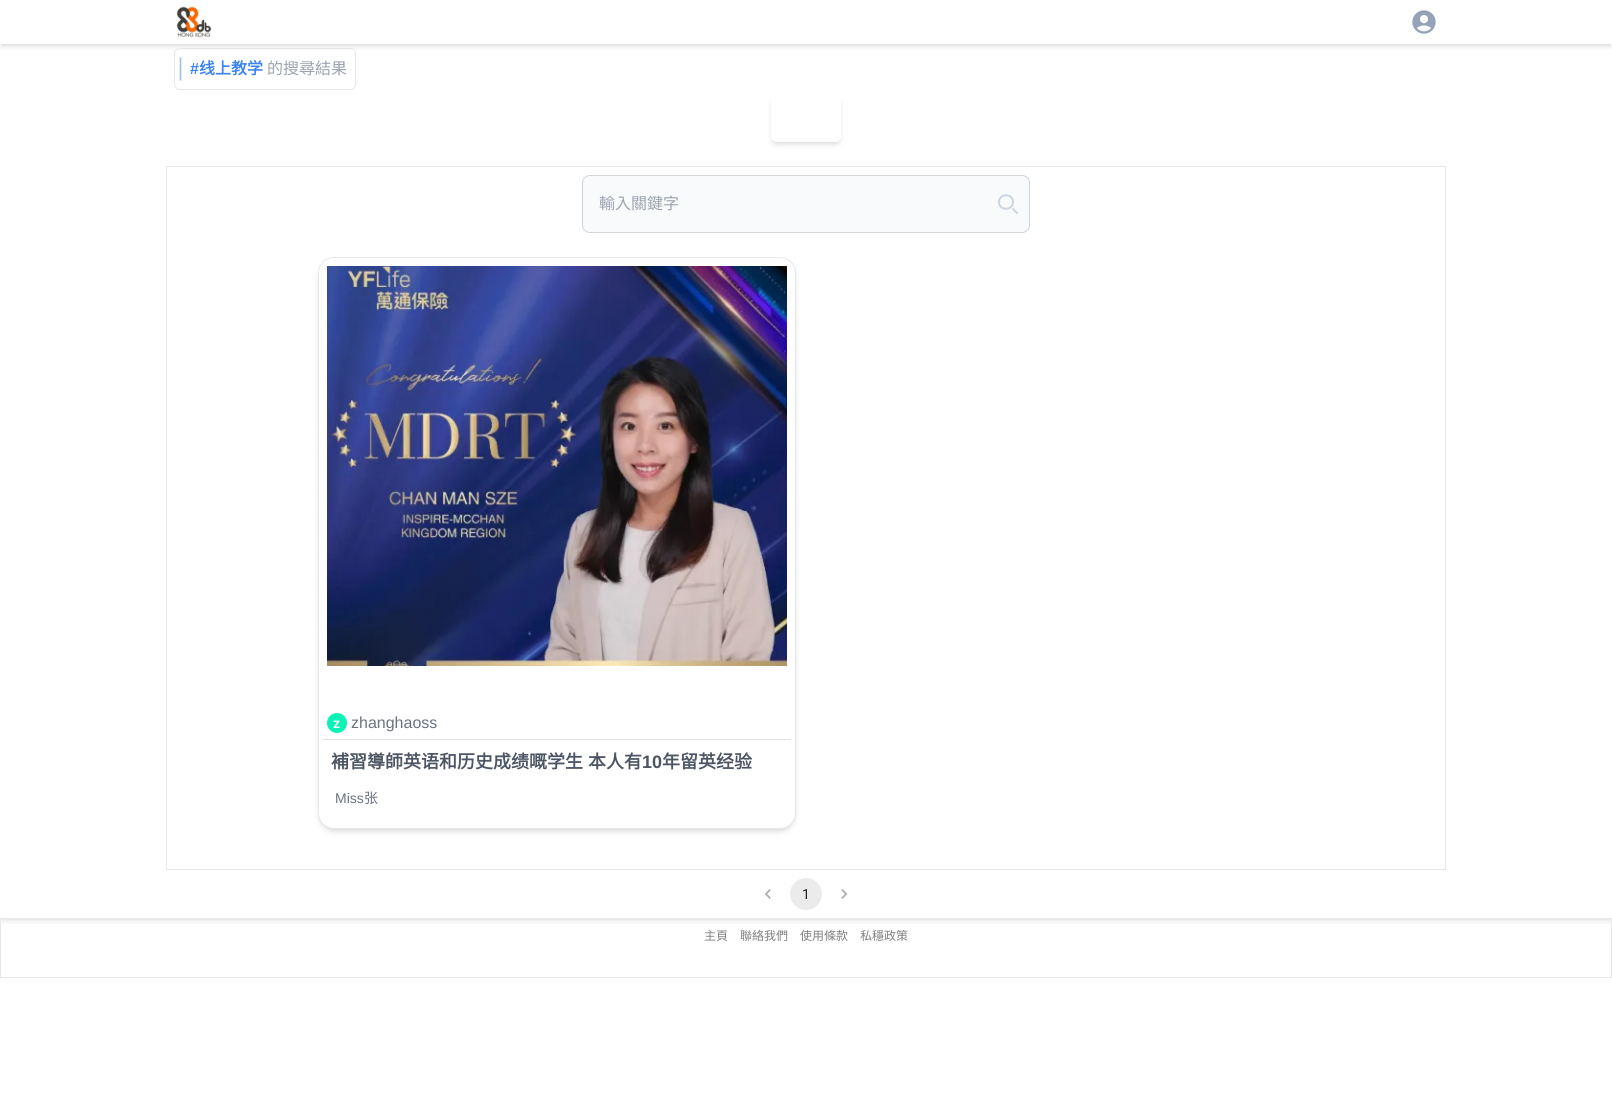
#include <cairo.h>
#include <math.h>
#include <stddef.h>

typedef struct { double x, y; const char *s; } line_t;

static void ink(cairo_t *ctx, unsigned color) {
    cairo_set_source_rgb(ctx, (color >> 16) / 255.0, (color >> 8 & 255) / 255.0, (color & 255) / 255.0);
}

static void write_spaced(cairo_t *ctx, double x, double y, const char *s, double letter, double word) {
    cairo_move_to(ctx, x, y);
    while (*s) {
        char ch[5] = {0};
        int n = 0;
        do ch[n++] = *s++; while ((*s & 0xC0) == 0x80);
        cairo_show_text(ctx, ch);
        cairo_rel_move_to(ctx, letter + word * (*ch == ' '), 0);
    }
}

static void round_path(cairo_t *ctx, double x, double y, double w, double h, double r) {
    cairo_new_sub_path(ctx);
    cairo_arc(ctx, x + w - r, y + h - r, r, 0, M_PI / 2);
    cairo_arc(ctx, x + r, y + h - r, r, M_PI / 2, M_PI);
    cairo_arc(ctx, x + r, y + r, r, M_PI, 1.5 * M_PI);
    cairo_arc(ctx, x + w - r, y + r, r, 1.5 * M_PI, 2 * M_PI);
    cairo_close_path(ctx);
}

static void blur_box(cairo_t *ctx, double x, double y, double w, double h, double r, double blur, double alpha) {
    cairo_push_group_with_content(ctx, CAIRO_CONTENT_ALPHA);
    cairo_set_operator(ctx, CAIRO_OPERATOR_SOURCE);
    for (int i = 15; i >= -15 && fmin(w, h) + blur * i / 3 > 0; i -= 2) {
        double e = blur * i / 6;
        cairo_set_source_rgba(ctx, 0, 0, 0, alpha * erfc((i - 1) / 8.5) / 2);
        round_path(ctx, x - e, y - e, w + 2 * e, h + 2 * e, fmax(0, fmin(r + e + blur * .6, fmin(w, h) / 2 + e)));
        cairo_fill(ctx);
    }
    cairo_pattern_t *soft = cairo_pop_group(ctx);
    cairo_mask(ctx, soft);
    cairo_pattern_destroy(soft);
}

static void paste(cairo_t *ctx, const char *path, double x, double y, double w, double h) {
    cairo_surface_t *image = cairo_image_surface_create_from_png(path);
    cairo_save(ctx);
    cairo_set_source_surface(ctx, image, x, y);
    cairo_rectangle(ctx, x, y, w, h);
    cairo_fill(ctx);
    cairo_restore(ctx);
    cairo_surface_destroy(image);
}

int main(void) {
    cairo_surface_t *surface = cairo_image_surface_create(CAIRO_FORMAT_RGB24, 1612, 1112);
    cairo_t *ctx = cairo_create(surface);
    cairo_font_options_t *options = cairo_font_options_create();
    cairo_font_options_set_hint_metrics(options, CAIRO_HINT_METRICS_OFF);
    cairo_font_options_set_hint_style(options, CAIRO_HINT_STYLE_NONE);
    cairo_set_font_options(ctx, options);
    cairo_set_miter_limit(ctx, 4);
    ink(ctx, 0xFFFFFF);
    cairo_paint(ctx);
    cairo_save(ctx);
    cairo_rectangle(ctx, 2, 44, 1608, 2);
    cairo_clip(ctx);
    ink(ctx, 0x000000);
    blur_box(ctx, 2, 4, 1608, 40, 0, 2, 0.1);
    cairo_restore(ctx);
    cairo_save(ctx);
    cairo_rectangle(ctx, 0, 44, 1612, 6);
    cairo_clip(ctx);
    ink(ctx, 0x000000);
    blur_box(ctx, 1, 5, 1610, 42, 0, 3, 0.1);
    cairo_restore(ctx);
    paste(ctx, "media/1.png", 176, 6, 36, 32);
    paste(ctx, "media/2.png", 1412, 10, 24, 24);
    cairo_save(ctx);
    cairo_rectangle(ctx, 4, 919, 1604, 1);
    cairo_clip(ctx);
    ink(ctx, 0x000000);
    blur_box(ctx, 2, 48, 1608, 870, 0, 2, 0.1);
    cairo_restore(ctx);
    cairo_save(ctx);
    cairo_rectangle(ctx, 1, 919, 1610, 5);
    cairo_clip(ctx);
    ink(ctx, 0x000000);
    blur_box(ctx, 1, 49, 1610, 872, 0, 3, 0.1);
    cairo_restore(ctx);
    round_path(ctx, 174.5, 48.5, 181, 41, 5.5);
    ink(ctx, 0xE5E7EB);
    cairo_set_line_width(ctx, 1);
    cairo_stroke(ctx);
    ink(ctx, 0x93C5FD);
    cairo_rectangle(ctx, 179.5, 57.5, 2, 23);
    cairo_fill_preserve(ctx);
    ink(ctx, 0xE5E7EB);
    cairo_stroke(ctx);
    cairo_select_font_face(ctx, "Liberation Sans", CAIRO_FONT_SLANT_NORMAL, CAIRO_FONT_WEIGHT_BOLD);
    cairo_set_font_size(ctx, 16);
    ink(ctx, 0x3B82F6);
    cairo_move_to(ctx, 190, 74);
    cairo_show_text(ctx, "#");
    cairo_select_font_face(ctx, "Noto Sans CJK HK", CAIRO_FONT_SLANT_NORMAL, CAIRO_FONT_WEIGHT_BOLD);
    cairo_move_to(ctx, 199, 74);
    cairo_show_text(ctx, "线上教学");
    cairo_select_font_face(ctx, "Noto Sans CJK HK", CAIRO_FONT_SLANT_NORMAL, CAIRO_FONT_WEIGHT_NORMAL);
    ink(ctx, 0x9CA3AF);
    cairo_move_to(ctx, 267, 74);
    cairo_show_text(ctx, "的搜尋結果");
    cairo_save(ctx);
    cairo_set_fill_rule(ctx, CAIRO_FILL_RULE_EVEN_ODD);
    cairo_new_path(ctx);
    cairo_move_to(ctx, 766, 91);
    cairo_line_to(ctx, 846, 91);
    cairo_line_to(ctx, 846, 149);
    cairo_line_to(ctx, 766, 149);
    cairo_close_path(ctx);
    cairo_move_to(ctx, 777, 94);
    cairo_line_to(ctx, 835, 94);
    cairo_curve_to(ctx, 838.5, 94, 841, 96.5, 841, 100);
    cairo_line_to(ctx, 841, 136);
    cairo_curve_to(ctx, 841, 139.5, 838.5, 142, 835, 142);
    cairo_line_to(ctx, 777, 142);
    cairo_curve_to(ctx, 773.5, 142, 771, 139.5, 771, 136);
    cairo_line_to(ctx, 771, 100);
    cairo_curve_to(ctx, 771, 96.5, 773.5, 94, 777, 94);
    cairo_close_path(ctx);
    cairo_clip(ctx);
    ink(ctx, 0x000000);
    blur_box(ctx, 773, 98, 66, 44, 4, 2, 0.1);
    cairo_restore(ctx);
    cairo_save(ctx);
    cairo_set_fill_rule(ctx, CAIRO_FILL_RULE_EVEN_ODD);
    cairo_new_path(ctx);
    cairo_move_to(ctx, 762, 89);
    cairo_line_to(ctx, 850, 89);
    cairo_line_to(ctx, 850, 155);
    cairo_line_to(ctx, 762, 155);
    cairo_close_path(ctx);
    cairo_move_to(ctx, 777, 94);
    cairo_line_to(ctx, 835, 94);
    cairo_curve_to(ctx, 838.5, 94, 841, 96.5, 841, 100);
    cairo_line_to(ctx, 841, 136);
    cairo_curve_to(ctx, 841, 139.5, 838.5, 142, 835, 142);
    cairo_line_to(ctx, 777, 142);
    cairo_curve_to(ctx, 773.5, 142, 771, 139.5, 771, 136);
    cairo_line_to(ctx, 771, 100);
    cairo_curve_to(ctx, 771, 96.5, 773.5, 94, 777, 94);
    cairo_close_path(ctx);
    cairo_clip(ctx);
    ink(ctx, 0x000000);
    blur_box(ctx, 772, 99, 68, 46, 5, 3, 0.1);
    cairo_restore(ctx);
    cairo_rectangle(ctx, 166.5, 166.5, 1279, 703);
    ink(ctx, 0xE5E7EB);
    cairo_stroke(ctx);
    ink(ctx, 0xF9FAFB);
    round_path(ctx, 582.5, 175.5, 447, 57, 7.5);
    cairo_fill_preserve(ctx);
    ink(ctx, 0xD1D5DB);
    cairo_stroke(ctx);
    ink(ctx, 0x9CA3AF);
    cairo_move_to(ctx, 599, 209);
    cairo_show_text(ctx, "輸入關鍵字");
    cairo_new_path(ctx);
    cairo_move_to(ctx, 1017, 213);
    cairo_line_to(ctx, 1013, 209);
    cairo_move_to(ctx, 1013, 202);
    cairo_curve_to(ctx, 1013, 211, 999, 211, 999, 202);
    cairo_curve_to(ctx, 999, 193, 1013, 193, 1013, 202);
    cairo_close_path(ctx);
    ink(ctx, 0xCBD5E1);
    cairo_set_line_width(ctx, 2);
    cairo_set_line_cap(ctx, CAIRO_LINE_CAP_ROUND);
    cairo_set_line_join(ctx, CAIRO_LINE_JOIN_ROUND);
    cairo_stroke(ctx);
    ink(ctx, 0x000000);
    blur_box(ctx, 320, 261, 474, 568, 14, 2, 0.1);
    blur_box(ctx, 319, 262, 476, 570, 15, 3, 0.1);
    ink(ctx, 0xFFFFFF);
    round_path(ctx, 318.5, 257.5, 477, 571, 15.5);
    cairo_fill_preserve(ctx);
    ink(ctx, 0xE5E7EB);
    cairo_set_line_width(ctx, 1);
    cairo_set_line_cap(ctx, CAIRO_LINE_CAP_BUTT);
    cairo_set_line_join(ctx, CAIRO_LINE_JOIN_MITER);
    cairo_stroke(ctx);
    paste(ctx, "media/3.png", 327, 266, 460, 400);
    ink(ctx, 0x0AF3B6);
    cairo_arc(ctx, 337, 723, 10, 0, 2 * M_PI);
    cairo_fill(ctx);
    cairo_select_font_face(ctx, "Roboto SemiBold", CAIRO_FONT_SLANT_NORMAL, CAIRO_FONT_WEIGHT_NORMAL);
    cairo_set_font_size(ctx, 14);
    ink(ctx, 0xFFFFFF);
    cairo_move_to(ctx, 333, 728);
    cairo_show_text(ctx, "z");
    cairo_select_font_face(ctx, "Liberation Sans", CAIRO_FONT_SLANT_NORMAL, CAIRO_FONT_WEIGHT_NORMAL);
    cairo_set_font_size(ctx, 16);
    ink(ctx, 0x6B7280);
    cairo_move_to(ctx, 351, 728);
    cairo_show_text(ctx, "zhanghaoss");
    ink(ctx, 0xE0E0E0);
    cairo_rectangle(ctx, 323, 739, 468, 1);
    cairo_fill(ctx);
    cairo_select_font_face(ctx, "Noto Sans CJK HK", CAIRO_FONT_SLANT_NORMAL, CAIRO_FONT_WEIGHT_BOLD);
    cairo_set_font_size(ctx, 18);
    ink(ctx, 0x4B5563);
    write_spaced(ctx, 331, 768, "補習導師英语和历史成绩嘅学生 本人有", 0, 1);
    cairo_select_font_face(ctx, "Liberation Sans", CAIRO_FONT_SLANT_NORMAL, CAIRO_FONT_WEIGHT_BOLD);
    cairo_move_to(ctx, 642, 768);
    cairo_show_text(ctx, "10");
    cairo_select_font_face(ctx, "Noto Sans CJK HK", CAIRO_FONT_SLANT_NORMAL, CAIRO_FONT_WEIGHT_BOLD);
    cairo_move_to(ctx, 662, 768);
    cairo_show_text(ctx, "年留英经验");
    cairo_select_font_face(ctx, "Liberation Sans", CAIRO_FONT_SLANT_NORMAL, CAIRO_FONT_WEIGHT_NORMAL);
    cairo_set_font_size(ctx, 14);
    ink(ctx, 0x6B7280);
    cairo_move_to(ctx, 335, 803);
    cairo_show_text(ctx, "Miss");
    cairo_select_font_face(ctx, "Noto Sans CJK HK", CAIRO_FONT_SLANT_NORMAL, CAIRO_FONT_WEIGHT_NORMAL);
    cairo_move_to(ctx, 364, 803);
    cairo_show_text(ctx, "张");
    paste(ctx, "media/4.png", 765, 889, 6, 10);
    ink(ctx, 0xEBEBEB);
    cairo_arc(ctx, 806, 894, 16, 0, 2 * M_PI);
    cairo_fill(ctx);
    cairo_select_font_face(ctx, "Roboto", CAIRO_FONT_SLANT_NORMAL, CAIRO_FONT_WEIGHT_NORMAL);
    ink(ctx, 0x1F1F1F);
    cairo_move_to(ctx, 802, 899);
    cairo_show_text(ctx, "1");
    paste(ctx, "media/5.png", 841, 889, 7, 10);
    cairo_rectangle(ctx, 0.5, 918.5, 1611, 59);
    ink(ctx, 0xE5E7EB);
    cairo_stroke(ctx);
    cairo_select_font_face(ctx, "Noto Sans CJK HK", CAIRO_FONT_SLANT_NORMAL, CAIRO_FONT_WEIGHT_NORMAL);
    cairo_set_font_size(ctx, 12);
    ink(ctx, 0x808080);
    {
        static const line_t items[] = {
            {704, 940, "主頁"},
            {740, 940, "聯絡我們"},
            {800, 940, "使用條款"},
            {860, 940, "私穩政策"},
        };
        for (size_t i = 0; i < sizeof items / sizeof *items; i++) {
            cairo_move_to(ctx, items[i].x, items[i].y);
            cairo_show_text(ctx, items[i].s);
        }
    }
    cairo_surface_write_to_png(surface, "image.png");
    cairo_font_options_destroy(options);
    cairo_destroy(ctx);
    cairo_surface_destroy(surface);
    return 0;
}
